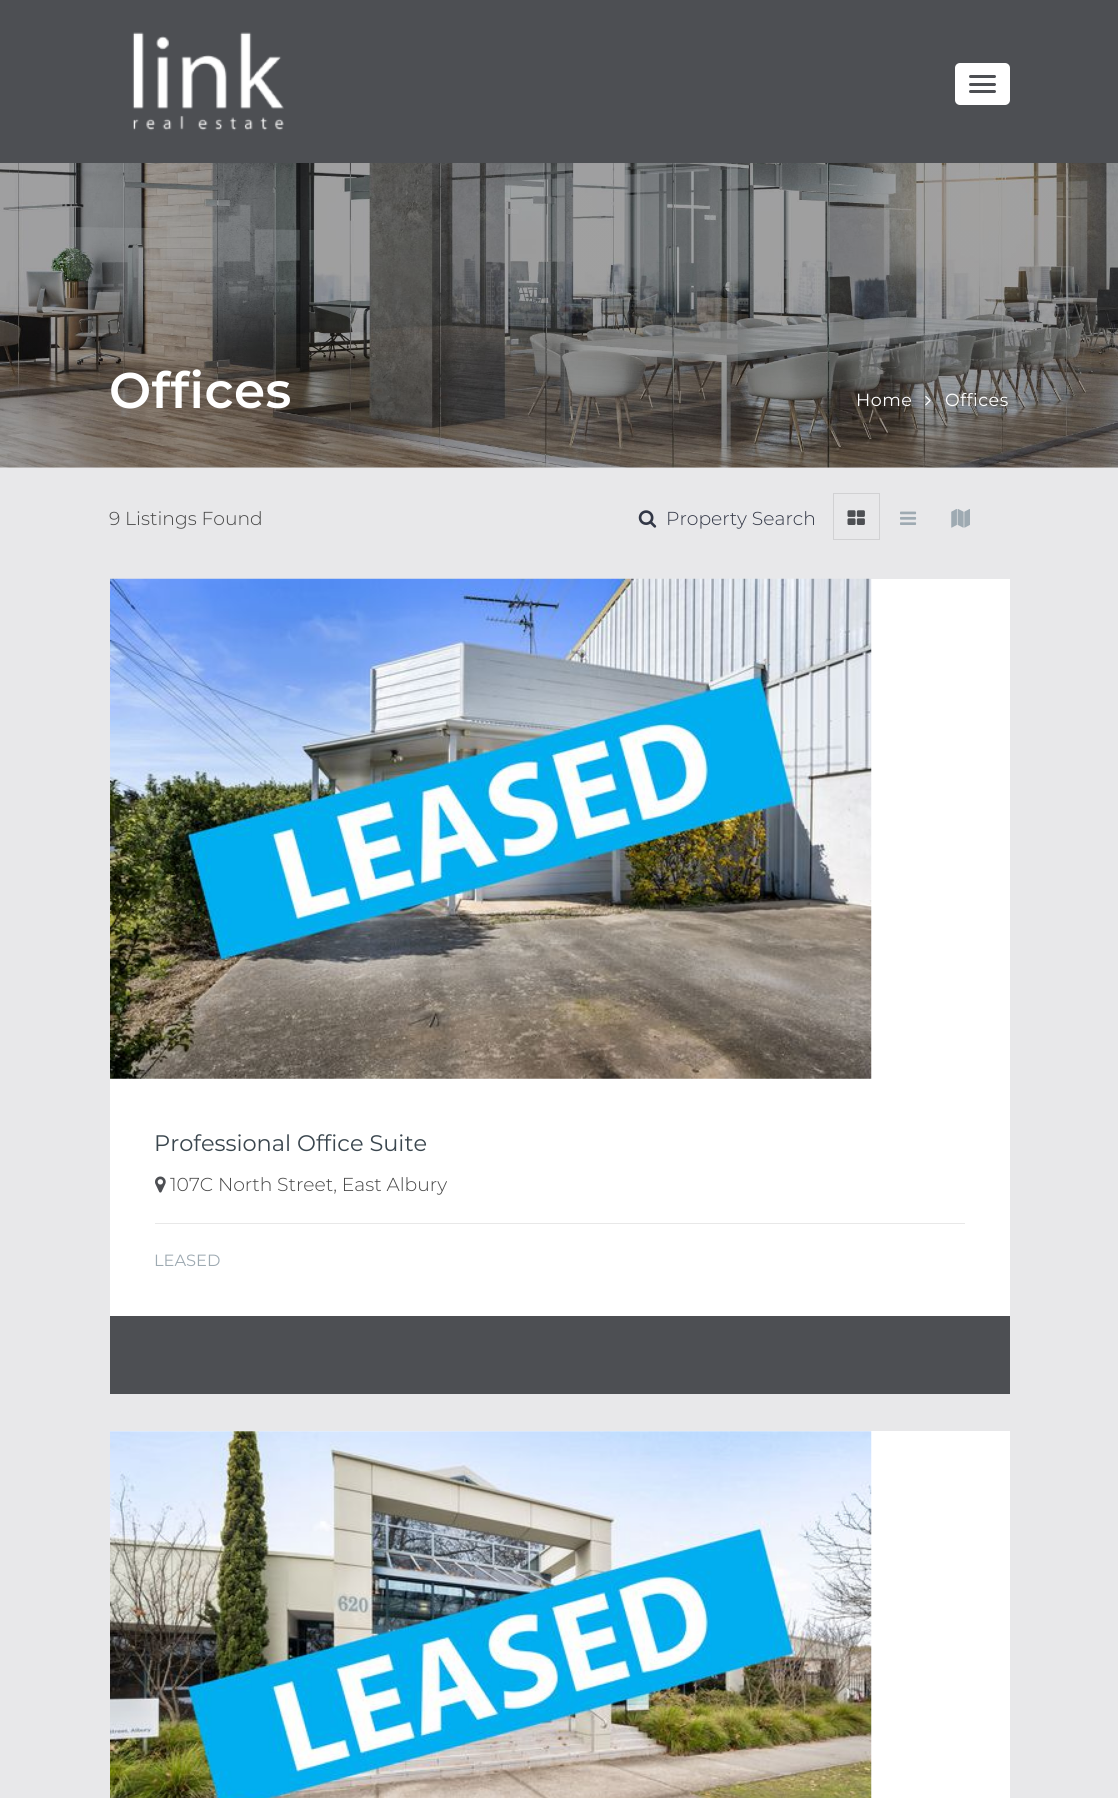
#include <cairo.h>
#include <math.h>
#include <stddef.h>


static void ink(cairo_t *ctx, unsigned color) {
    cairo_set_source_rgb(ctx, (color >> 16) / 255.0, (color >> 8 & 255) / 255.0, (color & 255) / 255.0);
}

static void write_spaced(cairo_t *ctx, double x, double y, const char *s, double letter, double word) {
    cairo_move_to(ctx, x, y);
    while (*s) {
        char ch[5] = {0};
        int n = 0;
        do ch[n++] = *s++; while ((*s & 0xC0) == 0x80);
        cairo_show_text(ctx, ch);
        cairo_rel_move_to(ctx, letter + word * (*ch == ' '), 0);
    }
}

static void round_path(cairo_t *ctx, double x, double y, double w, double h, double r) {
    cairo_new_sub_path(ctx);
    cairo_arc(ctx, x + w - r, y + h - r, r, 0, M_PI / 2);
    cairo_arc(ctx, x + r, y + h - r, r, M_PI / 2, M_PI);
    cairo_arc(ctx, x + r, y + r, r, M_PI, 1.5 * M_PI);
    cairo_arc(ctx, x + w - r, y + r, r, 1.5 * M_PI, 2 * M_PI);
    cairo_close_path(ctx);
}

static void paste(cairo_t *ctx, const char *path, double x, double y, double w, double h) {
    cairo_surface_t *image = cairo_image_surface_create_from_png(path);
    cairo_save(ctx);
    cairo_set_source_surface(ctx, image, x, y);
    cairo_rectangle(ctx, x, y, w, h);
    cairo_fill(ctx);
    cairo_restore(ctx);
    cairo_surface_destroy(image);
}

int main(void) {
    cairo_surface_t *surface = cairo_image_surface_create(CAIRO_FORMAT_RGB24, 1118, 1798);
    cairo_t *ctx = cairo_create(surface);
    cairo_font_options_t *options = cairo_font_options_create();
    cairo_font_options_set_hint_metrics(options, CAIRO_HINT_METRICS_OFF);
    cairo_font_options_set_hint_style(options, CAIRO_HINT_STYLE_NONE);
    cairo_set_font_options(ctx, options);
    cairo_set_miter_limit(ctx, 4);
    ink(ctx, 0xE8E8EA);
    cairo_paint(ctx);
    ink(ctx, 0x4D4F53);
    cairo_rectangle(ctx, 0, 0, 1118, 163);
    cairo_fill(ctx);
    paste(ctx, "media/1.png", 132, 32, 152, 99);
    ink(ctx, 0xFFFFFF);
    round_path(ctx, 955, 63, 55, 42, 5);
    cairo_fill(ctx);
    ink(ctx, 0x4D4F53);
    round_path(ctx, 969, 75, 27, 3, 1.5);
    cairo_fill(ctx);
    round_path(ctx, 969, 83, 27, 3, 1.5);
    cairo_fill(ctx);
    round_path(ctx, 969, 90, 27, 3, 1.5);
    cairo_fill(ctx);
    paste(ctx, "media/2.png", 0, 163, 1118, 305);
    cairo_select_font_face(ctx, "Montserrat SemiBold", CAIRO_FONT_SLANT_NORMAL, CAIRO_FONT_WEIGHT_NORMAL);
    cairo_set_font_size(ctx, 50);
    ink(ctx, 0xFFFFFF);
    write_spaced(ctx, 109, 408, "Offices", 0.5, 0);
    cairo_select_font_face(ctx, "Montserrat", CAIRO_FONT_SLANT_NORMAL, CAIRO_FONT_WEIGHT_NORMAL);
    cairo_set_font_size(ctx, 17.5);
    write_spaced(ctx, 856, 406, "Home", 0.5, 0);
    paste(ctx, "media/3.png", 925, 395, 6, 11);
    write_spaced(ctx, 945, 406, "Offices", 0.5, 0);
    cairo_select_font_face(ctx, "Montserrat Light", CAIRO_FONT_SLANT_NORMAL, CAIRO_FONT_WEIGHT_NORMAL);
    cairo_set_font_size(ctx, 18.75);
    ink(ctx, 0x464646);
    cairo_move_to(ctx, 109, 525);
    cairo_show_text(ctx, "9 Listings Found");
    paste(ctx, "media/4.png", 638, 510, 19, 18);
    ink(ctx, 0x323746);
    cairo_move_to(ctx, 666, 525);
    cairo_show_text(ctx, "Property Search");
    cairo_rectangle(ctx, 833.5, 493.5, 46, 46);
    ink(ctx, 0xD1D1D3);
    cairo_set_line_width(ctx, 1);
    cairo_stroke(ctx);
    paste(ctx, "media/5.png", 847, 510, 18, 15);
    paste(ctx, "media/6.png", 900, 511, 17, 14);
    paste(ctx, "media/7.png", 951, 509, 19, 19);
    ink(ctx, 0xFFFFFF);
    cairo_rectangle(ctx, 110, 579, 900, 737);
    cairo_fill(ctx);
    paste(ctx, "media/8.png", 110, 578, 762, 501);
    ink(ctx, 0xE8E8E8);
    cairo_rectangle(ctx, 155, 1223, 810, 1);
    cairo_fill(ctx);
    cairo_select_font_face(ctx, "Montserrat", CAIRO_FONT_SLANT_NORMAL, CAIRO_FONT_WEIGHT_NORMAL);
    cairo_set_font_size(ctx, 22.5);
    ink(ctx, 0x3A464E);
    cairo_move_to(ctx, 154, 1151);
    cairo_show_text(ctx, "Professional Office Suite");
    paste(ctx, "media/9.png", 155, 1176, 11, 17);
    cairo_select_font_face(ctx, "Montserrat Light", CAIRO_FONT_SLANT_NORMAL, CAIRO_FONT_WEIGHT_NORMAL);
    cairo_set_font_size(ctx, 18.75);
    ink(ctx, 0x464646);
    cairo_move_to(ctx, 170, 1191);
    cairo_show_text(ctx, "107C North Street, East Albury");
    cairo_select_font_face(ctx, "Montserrat", CAIRO_FONT_SLANT_NORMAL, CAIRO_FONT_WEIGHT_NORMAL);
    cairo_set_font_size(ctx, 16.25);
    ink(ctx, 0x9EAAB2);
    cairo_move_to(ctx, 154, 1266);
    cairo_show_text(ctx, "LEASED");
    ink(ctx, 0x4D4F53);
    cairo_rectangle(ctx, 110, 1316, 900, 78);
    cairo_fill(ctx);
    ink(ctx, 0xFFFFFF);
    cairo_rectangle(ctx, 110, 1431, 900, 367);
    cairo_fill(ctx);
    paste(ctx, "media/10.png", 110, 1431, 762, 367);
    cairo_surface_write_to_png(surface, "image.png");
    cairo_font_options_destroy(options);
    cairo_destroy(ctx);
    cairo_surface_destroy(surface);
    return 0;
}
